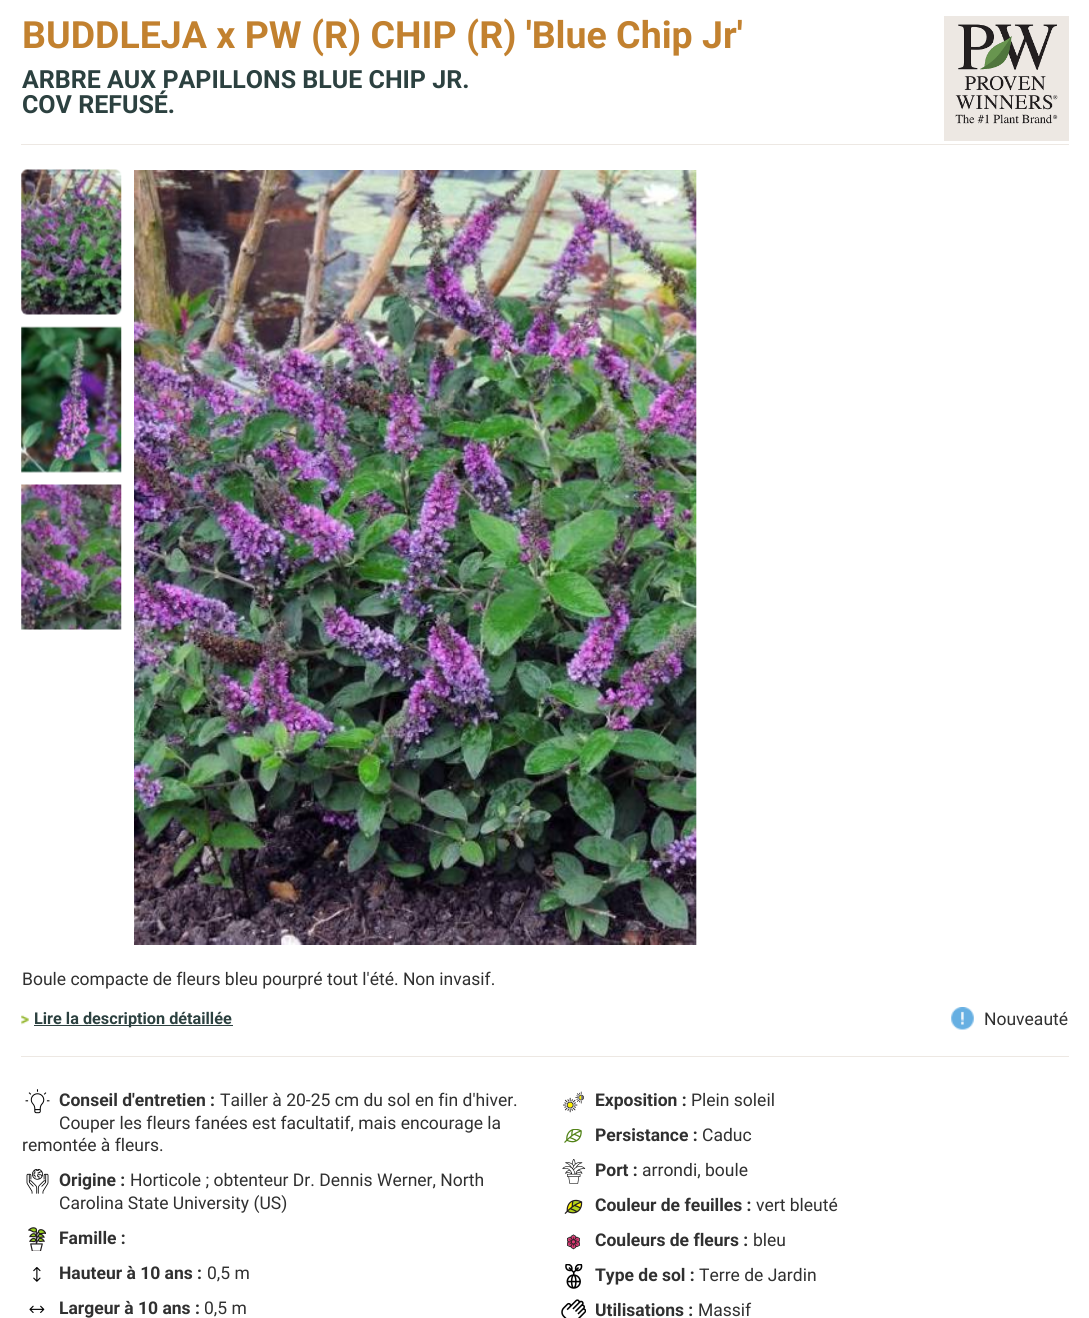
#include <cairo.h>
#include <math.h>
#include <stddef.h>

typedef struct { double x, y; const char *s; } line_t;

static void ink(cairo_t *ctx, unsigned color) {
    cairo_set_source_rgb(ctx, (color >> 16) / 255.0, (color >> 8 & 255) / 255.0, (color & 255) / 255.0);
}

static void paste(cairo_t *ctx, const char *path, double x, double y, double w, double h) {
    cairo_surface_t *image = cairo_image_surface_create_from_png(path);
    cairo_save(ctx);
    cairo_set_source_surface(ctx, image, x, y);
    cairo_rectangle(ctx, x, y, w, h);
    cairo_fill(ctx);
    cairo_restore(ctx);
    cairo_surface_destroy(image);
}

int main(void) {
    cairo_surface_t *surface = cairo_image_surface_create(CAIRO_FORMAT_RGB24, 1089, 1318);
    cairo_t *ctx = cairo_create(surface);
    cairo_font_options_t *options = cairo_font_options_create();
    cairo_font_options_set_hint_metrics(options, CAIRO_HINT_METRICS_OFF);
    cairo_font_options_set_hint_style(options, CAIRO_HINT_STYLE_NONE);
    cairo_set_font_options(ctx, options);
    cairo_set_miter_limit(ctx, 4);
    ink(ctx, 0xFFFFFF);
    cairo_paint(ctx);
    ink(ctx, 0xEDE8E3);
    cairo_rectangle(ctx, 21, 144, 1048, 1);
    cairo_fill(ctx);
    cairo_select_font_face(ctx, "Roboto", CAIRO_FONT_SLANT_NORMAL, CAIRO_FONT_WEIGHT_BOLD);
    cairo_set_font_size(ctx, 37.5);
    ink(ctx, 0xC2812F);
    cairo_move_to(ctx, 22, 48);
    cairo_show_text(ctx, "BUDDLEJA x PW (R) CHIP (R) 'Blue Chip Jr'");
    ink(ctx, 0xEDE8E3);
    cairo_rectangle(ctx, 944, 16, 125, 125);
    cairo_fill(ctx);
    paste(ctx, "media/1.png", 955, 24, 103, 100);
    cairo_set_font_size(ctx, 25);
    ink(ctx, 0x2C4140);
    cairo_move_to(ctx, 22, 88);
    cairo_show_text(ctx, "ARBRE AUX PAPILLONS BLUE CHIP JR.");
    cairo_move_to(ctx, 22, 113);
    cairo_show_text(ctx, "COV REFUSÉ.");
    paste(ctx, "media/2.png", 21, 169, 101, 146);
    paste(ctx, "media/3.png", 21, 326, 101, 147);
    paste(ctx, "media/4.png", 21, 484, 101, 146);
    paste(ctx, "media/5.png", 134, 170, 563, 775);
    ink(ctx, 0xEDE8E3);
    cairo_rectangle(ctx, 21, 1056, 1048, 1);
    cairo_fill(ctx);
    cairo_select_font_face(ctx, "Roboto", CAIRO_FONT_SLANT_NORMAL, CAIRO_FONT_WEIGHT_NORMAL);
    cairo_set_font_size(ctx, 17.5);
    ink(ctx, 0x303030);
    cairo_move_to(ctx, 22, 985);
    cairo_show_text(ctx, "Boule compacte de fleurs bleu pourpré tout l'été. Non invasif.");
    paste(ctx, "media/6.png", 21, 1015, 8, 10);
    ink(ctx, 0x2C4140);
    cairo_rectangle(ctx, 34, 1025, 199, 1);
    cairo_fill(ctx);
    cairo_select_font_face(ctx, "Roboto", CAIRO_FONT_SLANT_NORMAL, CAIRO_FONT_WEIGHT_BOLD);
    cairo_set_font_size(ctx, 16.25);
    cairo_move_to(ctx, 34, 1024);
    cairo_show_text(ctx, "Lire la description détaillée");
    paste(ctx, "media/7.png", 951, 1007, 23, 23);
    cairo_select_font_face(ctx, "Roboto", CAIRO_FONT_SLANT_NORMAL, CAIRO_FONT_WEIGHT_NORMAL);
    cairo_set_font_size(ctx, 17.5);
    ink(ctx, 0x303030);
    cairo_move_to(ctx, 984, 1025);
    cairo_show_text(ctx, "Nouveauté");
    paste(ctx, "media/8.png", 25, 1089, 25, 25);
    cairo_select_font_face(ctx, "Roboto", CAIRO_FONT_SLANT_NORMAL, CAIRO_FONT_WEIGHT_BOLD);
    cairo_move_to(ctx, 59, 1106);
    cairo_show_text(ctx, "Conseil d'entretien :");
    cairo_select_font_face(ctx, "Roboto", CAIRO_FONT_SLANT_NORMAL, CAIRO_FONT_WEIGHT_NORMAL);
    {
        static const line_t items[] = {
            {220, 1106, "Tailler à 20-25 cm du sol en fin d'hiver."},
            {59, 1129, "Couper les fleurs fanées est facultatif, mais encourage la"},
            {22, 1151, "remontée à fleurs."},
        };
        for (size_t i = 0; i < sizeof items / sizeof *items; i++) {
            cairo_move_to(ctx, items[i].x, items[i].y);
            cairo_show_text(ctx, items[i].s);
        }
    }
    paste(ctx, "media/9.png", 563, 1091, 21, 22);
    cairo_select_font_face(ctx, "Roboto", CAIRO_FONT_SLANT_NORMAL, CAIRO_FONT_WEIGHT_BOLD);
    cairo_move_to(ctx, 595, 1106);
    cairo_show_text(ctx, "Exposition :");
    cairo_select_font_face(ctx, "Roboto", CAIRO_FONT_SLANT_NORMAL, CAIRO_FONT_WEIGHT_NORMAL);
    cairo_move_to(ctx, 691, 1106);
    cairo_show_text(ctx, "Plein soleil");
    paste(ctx, "media/10.png", 564, 1129, 18, 14);
    cairo_select_font_face(ctx, "Roboto", CAIRO_FONT_SLANT_NORMAL, CAIRO_FONT_WEIGHT_BOLD);
    cairo_move_to(ctx, 595, 1141);
    cairo_show_text(ctx, "Persistance :");
    cairo_select_font_face(ctx, "Roboto", CAIRO_FONT_SLANT_NORMAL, CAIRO_FONT_WEIGHT_NORMAL);
    cairo_move_to(ctx, 702, 1141);
    cairo_show_text(ctx, "Caduc");
    paste(ctx, "media/11.png", 26, 1169, 23, 25);
    cairo_select_font_face(ctx, "Roboto", CAIRO_FONT_SLANT_NORMAL, CAIRO_FONT_WEIGHT_BOLD);
    cairo_move_to(ctx, 59, 1186);
    cairo_show_text(ctx, "Origine :");
    cairo_select_font_face(ctx, "Roboto", CAIRO_FONT_SLANT_NORMAL, CAIRO_FONT_WEIGHT_NORMAL);
    cairo_move_to(ctx, 130, 1186);
    cairo_show_text(ctx, "Horticole ; obtenteur Dr. Dennis Werner, North");
    cairo_move_to(ctx, 59, 1209);
    cairo_show_text(ctx, "Carolina State University (US)");
    paste(ctx, "media/12.png", 562, 1159, 24, 25);
    cairo_select_font_face(ctx, "Roboto", CAIRO_FONT_SLANT_NORMAL, CAIRO_FONT_WEIGHT_BOLD);
    cairo_move_to(ctx, 595, 1176);
    cairo_show_text(ctx, "Port :");
    cairo_select_font_face(ctx, "Roboto", CAIRO_FONT_SLANT_NORMAL, CAIRO_FONT_WEIGHT_NORMAL);
    cairo_move_to(ctx, 642, 1176);
    cairo_show_text(ctx, "arrondi, boule");
    paste(ctx, "media/13.png", 564, 1199, 19, 15);
    cairo_select_font_face(ctx, "Roboto", CAIRO_FONT_SLANT_NORMAL, CAIRO_FONT_WEIGHT_BOLD);
    cairo_move_to(ctx, 595, 1211);
    cairo_show_text(ctx, "Couleur de feuilles :");
    cairo_select_font_face(ctx, "Roboto", CAIRO_FONT_SLANT_NORMAL, CAIRO_FONT_WEIGHT_NORMAL);
    cairo_move_to(ctx, 756, 1211);
    cairo_show_text(ctx, "vert bleuté");
    paste(ctx, "media/14.png", 28, 1227, 18, 24);
    cairo_select_font_face(ctx, "Roboto", CAIRO_FONT_SLANT_NORMAL, CAIRO_FONT_WEIGHT_BOLD);
    cairo_move_to(ctx, 59, 1244);
    cairo_show_text(ctx, "Famille :");
    paste(ctx, "media/15.png", 567, 1234, 13, 16);
    cairo_move_to(ctx, 595, 1246);
    cairo_show_text(ctx, "Couleurs de fleurs :");
    cairo_select_font_face(ctx, "Roboto", CAIRO_FONT_SLANT_NORMAL, CAIRO_FONT_WEIGHT_NORMAL);
    cairo_move_to(ctx, 753, 1246);
    cairo_show_text(ctx, "bleu");
    paste(ctx, "media/16.png", 33, 1267, 8, 15);
    cairo_select_font_face(ctx, "Roboto", CAIRO_FONT_SLANT_NORMAL, CAIRO_FONT_WEIGHT_BOLD);
    cairo_move_to(ctx, 59, 1279);
    cairo_show_text(ctx, "Hauteur à 10 ans :");
    cairo_select_font_face(ctx, "Roboto", CAIRO_FONT_SLANT_NORMAL, CAIRO_FONT_WEIGHT_NORMAL);
    cairo_move_to(ctx, 207, 1279);
    cairo_show_text(ctx, "0,5 m");
    paste(ctx, "media/17.png", 565, 1264, 18, 25);
    cairo_select_font_face(ctx, "Roboto", CAIRO_FONT_SLANT_NORMAL, CAIRO_FONT_WEIGHT_BOLD);
    cairo_move_to(ctx, 595, 1281);
    cairo_show_text(ctx, "Type de sol :");
    cairo_select_font_face(ctx, "Roboto", CAIRO_FONT_SLANT_NORMAL, CAIRO_FONT_WEIGHT_NORMAL);
    cairo_move_to(ctx, 699, 1281);
    cairo_show_text(ctx, "Terre de Jardin");
    paste(ctx, "media/18.png", 29, 1305, 16, 8);
    cairo_select_font_face(ctx, "Roboto", CAIRO_FONT_SLANT_NORMAL, CAIRO_FONT_WEIGHT_BOLD);
    cairo_move_to(ctx, 59, 1314);
    cairo_show_text(ctx, "Largeur à 10 ans :");
    cairo_select_font_face(ctx, "Roboto", CAIRO_FONT_SLANT_NORMAL, CAIRO_FONT_WEIGHT_NORMAL);
    cairo_move_to(ctx, 204, 1314);
    cairo_show_text(ctx, "0,5 m");
    paste(ctx, "media/19.png", 561, 1299, 25, 19);
    cairo_select_font_face(ctx, "Roboto", CAIRO_FONT_SLANT_NORMAL, CAIRO_FONT_WEIGHT_BOLD);
    cairo_move_to(ctx, 595, 1316);
    cairo_show_text(ctx, "Utilisations :");
    cairo_select_font_face(ctx, "Roboto", CAIRO_FONT_SLANT_NORMAL, CAIRO_FONT_WEIGHT_NORMAL);
    cairo_move_to(ctx, 698, 1316);
    cairo_show_text(ctx, "Massif");
    cairo_surface_write_to_png(surface, "image.png");
    cairo_font_options_destroy(options);
    cairo_destroy(ctx);
    cairo_surface_destroy(surface);
    return 0;
}
